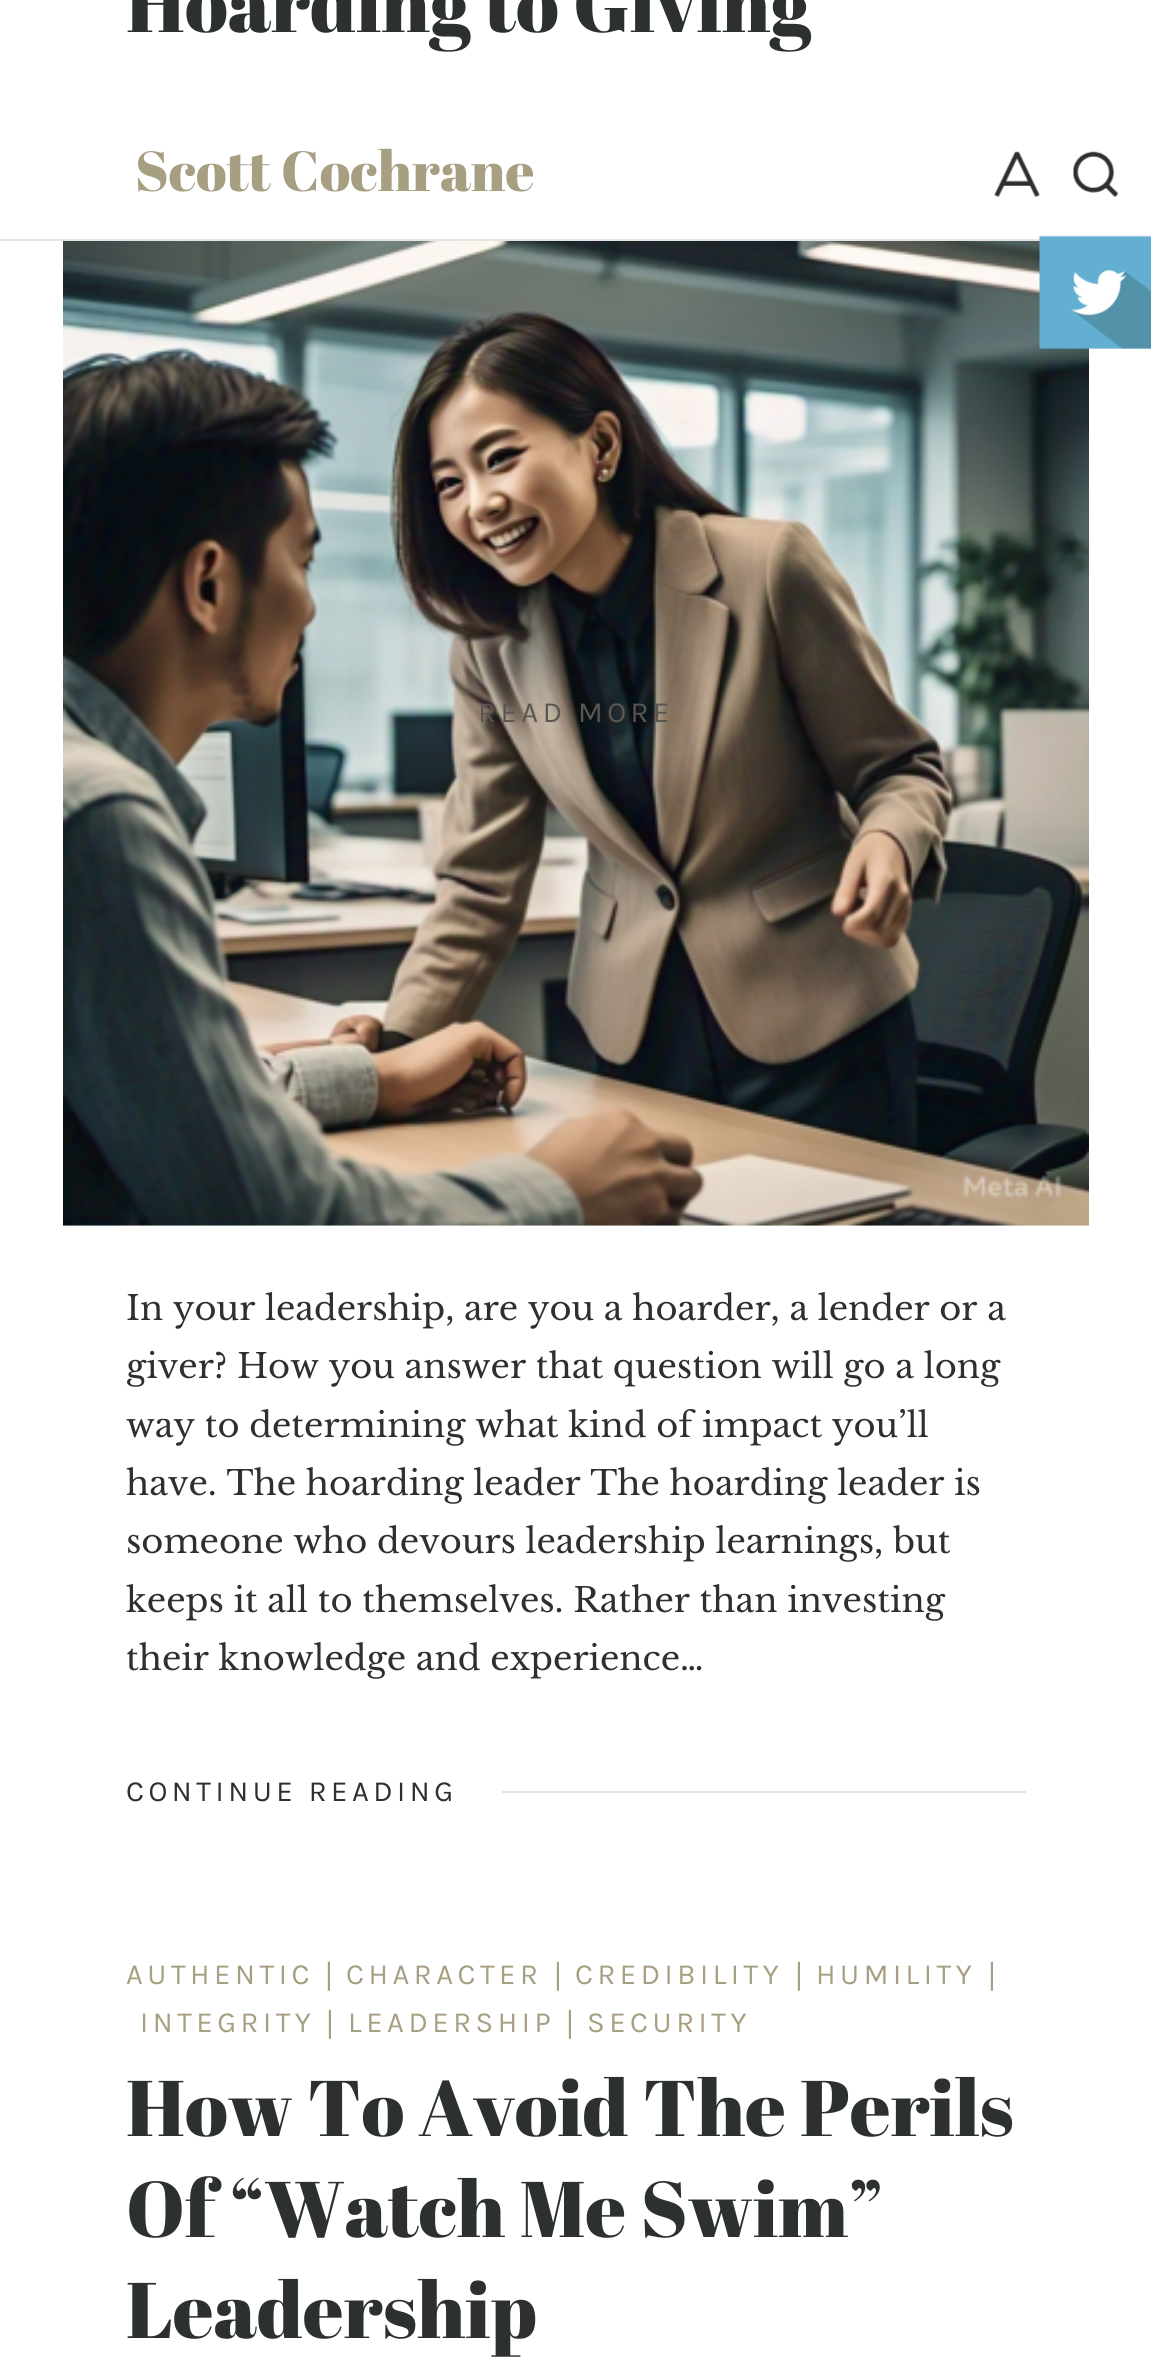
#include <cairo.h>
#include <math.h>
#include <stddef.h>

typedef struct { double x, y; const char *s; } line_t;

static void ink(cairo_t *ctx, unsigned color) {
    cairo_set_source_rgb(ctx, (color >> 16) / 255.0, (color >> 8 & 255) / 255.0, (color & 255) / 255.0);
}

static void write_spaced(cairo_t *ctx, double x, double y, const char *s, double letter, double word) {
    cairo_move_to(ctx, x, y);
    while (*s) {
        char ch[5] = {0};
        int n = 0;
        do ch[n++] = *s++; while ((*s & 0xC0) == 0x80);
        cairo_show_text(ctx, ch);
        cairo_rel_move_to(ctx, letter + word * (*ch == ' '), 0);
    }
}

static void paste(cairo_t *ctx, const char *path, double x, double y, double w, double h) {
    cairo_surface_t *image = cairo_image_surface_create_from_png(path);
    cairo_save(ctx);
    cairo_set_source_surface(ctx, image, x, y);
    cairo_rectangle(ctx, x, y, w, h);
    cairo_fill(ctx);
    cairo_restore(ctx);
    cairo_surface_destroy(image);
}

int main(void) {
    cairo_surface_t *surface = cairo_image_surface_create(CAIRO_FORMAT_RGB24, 1151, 2359);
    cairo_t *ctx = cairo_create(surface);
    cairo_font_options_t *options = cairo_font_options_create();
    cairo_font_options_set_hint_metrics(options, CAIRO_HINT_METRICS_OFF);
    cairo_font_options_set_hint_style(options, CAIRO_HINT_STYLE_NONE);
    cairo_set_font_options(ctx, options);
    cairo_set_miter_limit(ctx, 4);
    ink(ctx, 0xFFFFFF);
    cairo_paint(ctx);
    cairo_select_font_face(ctx, "Abril Fatface", CAIRO_FONT_SLANT_NORMAL, CAIRO_FONT_WEIGHT_NORMAL);
    cairo_set_font_size(ctx, 78.75);
    ink(ctx, 0x2D3031);
    cairo_move_to(ctx, 126, 32);
    cairo_show_text(ctx, "Hoarding to Giving");
    paste(ctx, "media/1.png", 63, 241, 1026, 985);
    cairo_select_font_face(ctx, "Karla", CAIRO_FONT_SLANT_NORMAL, CAIRO_FONT_WEIGHT_NORMAL);
    cairo_set_font_size(ctx, 29.25);
    ink(ctx, 0x5A5651);
    write_spaced(ctx, 478, 722, "READ MORE", 4.5, 0);
    cairo_select_font_face(ctx, "Libre Baskerville", CAIRO_FONT_SLANT_NORMAL, CAIRO_FONT_WEIGHT_NORMAL);
    cairo_set_font_size(ctx, 33.75);
    ink(ctx, 0x2D3031);
    {
        static const line_t items[] = {
            {126, 1320, "In your leadership, are you a hoarder, a lender or a"},
            {126, 1378, "giver? How you answer that question will go a long"},
            {126, 1437, "way to determining what kind of impact you’ll"},
            {126, 1495, "have. The hoarding leader The hoarding leader is"},
            {126, 1553, "someone who devours leadership learnings, but"},
            {126, 1612, "keeps it all to themselves. Rather than investing"},
            {126, 1670, "their knowledge and experience…"},
        };
        for (size_t i = 0; i < sizeof items / sizeof *items; i++) {
            cairo_move_to(ctx, items[i].x, items[i].y);
            cairo_show_text(ctx, items[i].s);
        }
    }
    cairo_select_font_face(ctx, "Karla", CAIRO_FONT_SLANT_NORMAL, CAIRO_FONT_WEIGHT_NORMAL);
    cairo_set_font_size(ctx, 29.25);
    write_spaced(ctx, 126, 1801, "CONTINUE READING", 4.5, 0);
    ink(ctx, 0xE5E5E5);
    cairo_rectangle(ctx, 502, 1791, 524, 2);
    cairo_fill(ctx);
    ink(ctx, 0xA79F82);
    write_spaced(ctx, 126, 1984, "AUTHENTIC", 4.5, 0);
    cairo_select_font_face(ctx, "Libre Baskerville", CAIRO_FONT_SLANT_NORMAL, CAIRO_FONT_WEIGHT_NORMAL);
    cairo_set_font_size(ctx, 27);
    cairo_move_to(ctx, 325, 1984);
    cairo_show_text(ctx, "|");
    cairo_select_font_face(ctx, "Karla", CAIRO_FONT_SLANT_NORMAL, CAIRO_FONT_WEIGHT_NORMAL);
    cairo_set_font_size(ctx, 29.25);
    write_spaced(ctx, 346, 1984, "CHARACTER", 4.5, 0);
    cairo_select_font_face(ctx, "Libre Baskerville", CAIRO_FONT_SLANT_NORMAL, CAIRO_FONT_WEIGHT_NORMAL);
    cairo_set_font_size(ctx, 27);
    cairo_move_to(ctx, 554, 1984);
    cairo_show_text(ctx, "|");
    cairo_select_font_face(ctx, "Karla", CAIRO_FONT_SLANT_NORMAL, CAIRO_FONT_WEIGHT_NORMAL);
    cairo_set_font_size(ctx, 29.25);
    write_spaced(ctx, 575, 1984, "CREDIBILITY", 4.5, 0);
    cairo_select_font_face(ctx, "Libre Baskerville", CAIRO_FONT_SLANT_NORMAL, CAIRO_FONT_WEIGHT_NORMAL);
    cairo_set_font_size(ctx, 27);
    cairo_move_to(ctx, 795, 1984);
    cairo_show_text(ctx, "|");
    cairo_select_font_face(ctx, "Karla", CAIRO_FONT_SLANT_NORMAL, CAIRO_FONT_WEIGHT_NORMAL);
    cairo_set_font_size(ctx, 29.25);
    write_spaced(ctx, 816, 1984, "HUMILITY", 4.5, 0);
    cairo_select_font_face(ctx, "Libre Baskerville", CAIRO_FONT_SLANT_NORMAL, CAIRO_FONT_WEIGHT_NORMAL);
    cairo_set_font_size(ctx, 27);
    cairo_move_to(ctx, 988, 1984);
    cairo_show_text(ctx, "|");
    cairo_select_font_face(ctx, "Karla", CAIRO_FONT_SLANT_NORMAL, CAIRO_FONT_WEIGHT_NORMAL);
    cairo_set_font_size(ctx, 29.25);
    write_spaced(ctx, 140, 2032, "INTEGRITY", 4.5, 0);
    cairo_select_font_face(ctx, "Libre Baskerville", CAIRO_FONT_SLANT_NORMAL, CAIRO_FONT_WEIGHT_NORMAL);
    cairo_set_font_size(ctx, 27);
    cairo_move_to(ctx, 326, 2032);
    cairo_show_text(ctx, "|");
    cairo_select_font_face(ctx, "Karla", CAIRO_FONT_SLANT_NORMAL, CAIRO_FONT_WEIGHT_NORMAL);
    cairo_set_font_size(ctx, 29.25);
    write_spaced(ctx, 348, 2032, "LEADERSHIP", 4.5, 0);
    cairo_select_font_face(ctx, "Libre Baskerville", CAIRO_FONT_SLANT_NORMAL, CAIRO_FONT_WEIGHT_NORMAL);
    cairo_set_font_size(ctx, 27);
    cairo_move_to(ctx, 566, 2032);
    cairo_show_text(ctx, "|");
    cairo_select_font_face(ctx, "Karla", CAIRO_FONT_SLANT_NORMAL, CAIRO_FONT_WEIGHT_NORMAL);
    cairo_set_font_size(ctx, 29.25);
    write_spaced(ctx, 587, 2032, "SECURITY", 4.5, 0);
    cairo_select_font_face(ctx, "Abril Fatface", CAIRO_FONT_SLANT_NORMAL, CAIRO_FONT_WEIGHT_NORMAL);
    cairo_set_font_size(ctx, 78.75);
    ink(ctx, 0x2D3031);
    {
        static const line_t items[] = {
            {126, 2136, "How To Avoid The Perils"},
            {126, 2237, "Of “Watch Me Swim”"},
            {126, 2338, "Leadership"},
        };
        for (size_t i = 0; i < sizeof items / sizeof *items; i++) {
            cairo_move_to(ctx, items[i].x, items[i].y);
            cairo_show_text(ctx, items[i].s);
        }
    }
    cairo_set_font_size(ctx, 56.25);
    ink(ctx, 0xA79F82);
    cairo_move_to(ctx, 135, 191);
    cairo_show_text(ctx, "Scott Cochrane");
    paste(ctx, "media/2.png", 994, 151, 46, 46);
    paste(ctx, "media/3.png", 1073, 151, 46, 46);
    ink(ctx, 0xE5E5E5);
    cairo_rectangle(ctx, 0, 239, 1040, 2);
    cairo_fill(ctx);
    paste(ctx, "media/4.png", 1039, 235, 112, 114);
    cairo_surface_write_to_png(surface, "image.png");
    cairo_font_options_destroy(options);
    cairo_destroy(ctx);
    cairo_surface_destroy(surface);
    return 0;
}
